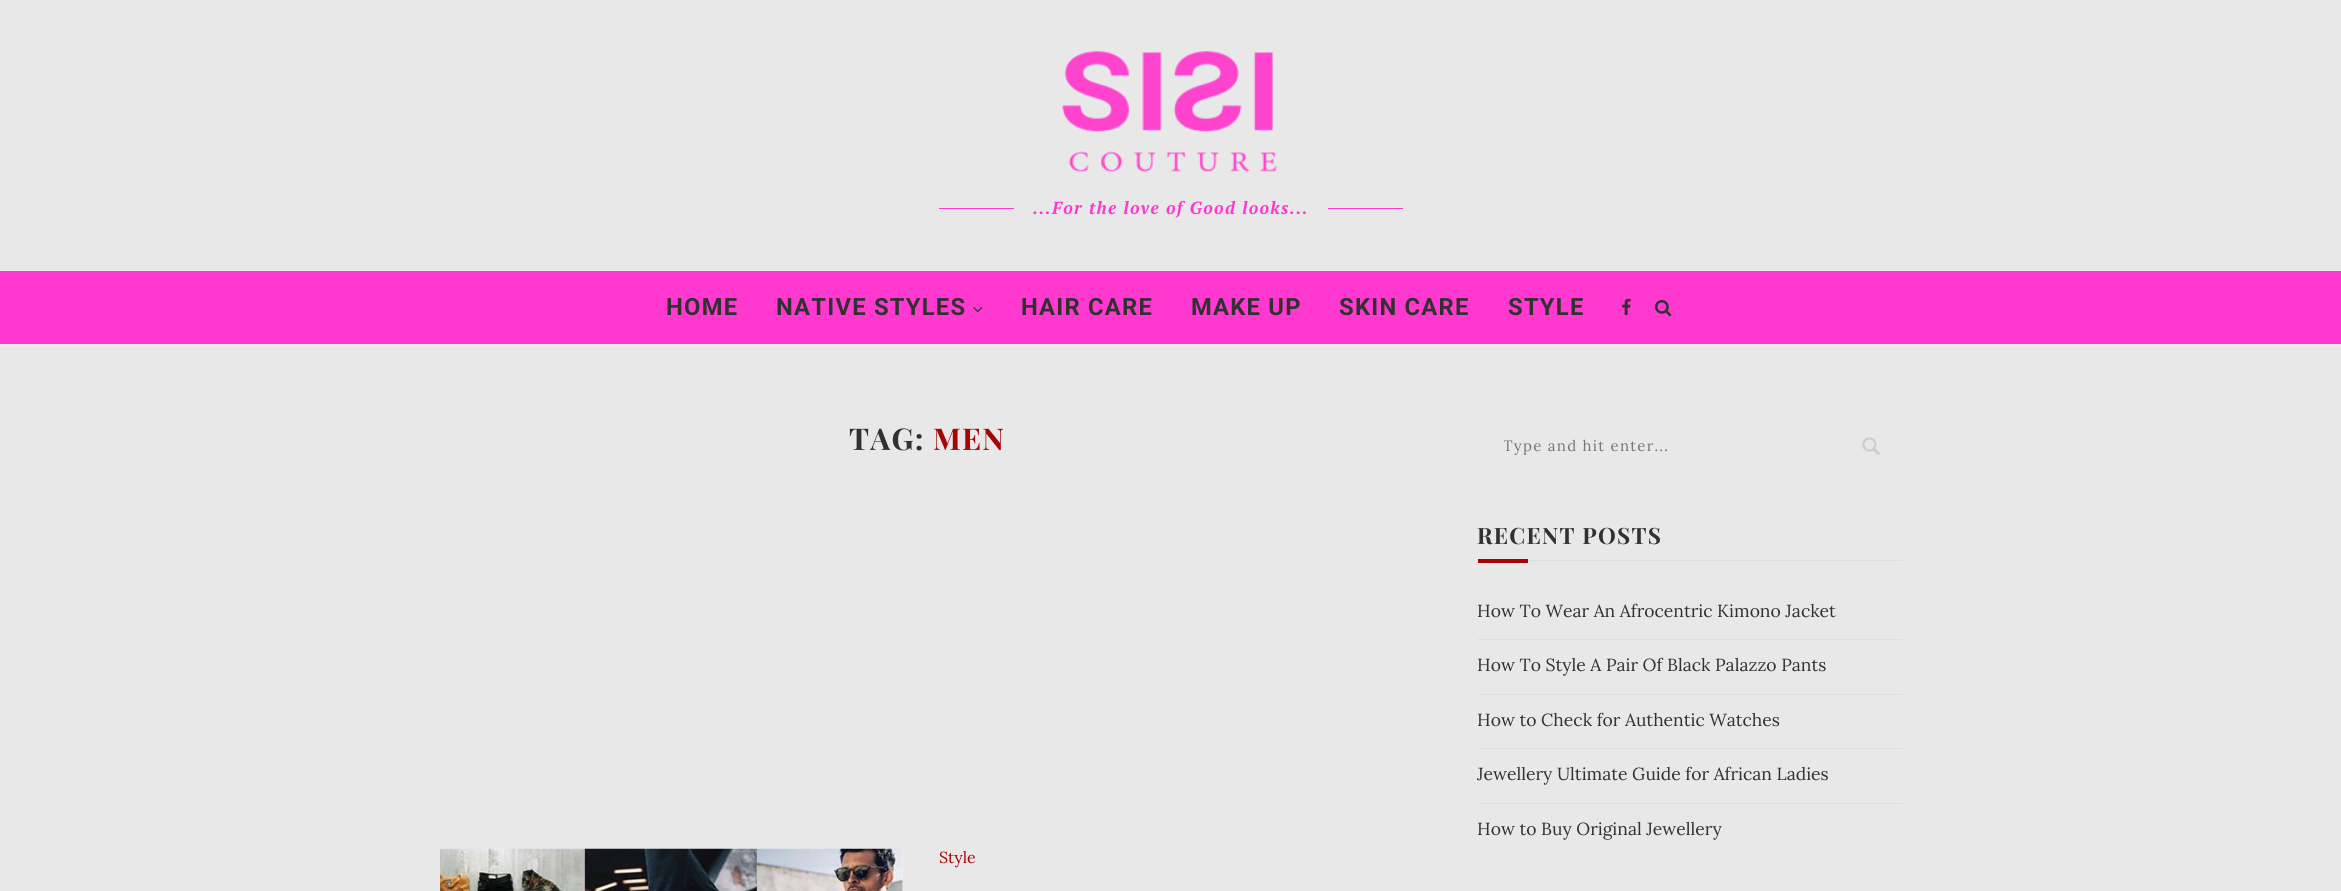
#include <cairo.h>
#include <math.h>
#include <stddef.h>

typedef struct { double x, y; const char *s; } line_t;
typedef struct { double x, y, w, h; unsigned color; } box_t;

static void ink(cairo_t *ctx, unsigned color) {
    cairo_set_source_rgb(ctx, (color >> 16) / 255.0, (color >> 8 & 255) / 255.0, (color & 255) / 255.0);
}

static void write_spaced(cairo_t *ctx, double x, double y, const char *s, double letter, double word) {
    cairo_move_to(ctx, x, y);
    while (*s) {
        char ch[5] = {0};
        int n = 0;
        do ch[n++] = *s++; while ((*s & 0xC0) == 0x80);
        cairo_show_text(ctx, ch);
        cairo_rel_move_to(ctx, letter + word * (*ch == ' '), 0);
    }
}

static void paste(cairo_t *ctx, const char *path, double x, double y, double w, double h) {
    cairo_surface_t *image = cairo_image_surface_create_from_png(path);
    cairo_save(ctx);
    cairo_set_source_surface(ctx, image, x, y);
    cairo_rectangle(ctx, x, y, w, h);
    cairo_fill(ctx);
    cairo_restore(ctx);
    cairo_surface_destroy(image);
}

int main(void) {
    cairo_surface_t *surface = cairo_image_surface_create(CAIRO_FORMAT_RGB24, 2341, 891);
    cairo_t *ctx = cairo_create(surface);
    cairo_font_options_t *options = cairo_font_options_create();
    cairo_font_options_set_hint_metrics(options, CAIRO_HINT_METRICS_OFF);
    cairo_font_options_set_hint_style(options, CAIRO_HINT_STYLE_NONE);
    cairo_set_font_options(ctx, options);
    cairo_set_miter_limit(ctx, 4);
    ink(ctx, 0xE8E8E8);
    cairo_paint(ctx);
    paste(ctx, "media/1.png", 1062, 51, 215, 121);
    ink(ctx, 0xFF39CF);
    cairo_rectangle(ctx, 939, 208, 75, 1);
    cairo_fill(ctx);
    cairo_select_font_face(ctx, "PT Serif", CAIRO_FONT_SLANT_ITALIC, CAIRO_FONT_WEIGHT_BOLD);
    cairo_set_font_size(ctx, 17.5);
    write_spaced(ctx, 1033, 214, "...For the love of Good looks...", 1.25, 0);
    {
        static const box_t items[] = {
            {1328, 208, 75, 1, 0xFF39CF},
            {0, 271, 2341, 73, 0xFF39CF},
            {0, 270, 2341, 1, 0xECECEC},
            {0, 344, 2341, 1, 0xECECEC},
        };
        for (size_t i = 0; i < sizeof items / sizeof *items; i++) {
            ink(ctx, items[i].color);
            cairo_rectangle(ctx, items[i].x, items[i].y, items[i].w, items[i].h);
            cairo_fill(ctx);
        }
    }
    cairo_select_font_face(ctx, "Roboto", CAIRO_FONT_SLANT_NORMAL, CAIRO_FONT_WEIGHT_BOLD);
    cairo_set_font_size(ctx, 23.75);
    ink(ctx, 0x313131);
    write_spaced(ctx, 666, 315, "HOME", 1.25, 0);
    write_spaced(ctx, 776, 315, "NATIVE STYLES", 1.25, 0);
    paste(ctx, "media/2.png", 973, 307, 10, 6);
    {
        static const line_t items[] = {
            {1021, 315, "HAIR CARE"},
            {1191, 315, "MAKE UP"},
            {1339, 315, "SKIN CARE"},
            {1508, 315, "STYLE"},
        };
        for (size_t i = 0; i < sizeof items / sizeof *items; i++) {
            write_spaced(ctx, items[i].x, items[i].y, items[i].s, 1.25, 0);
        }
    }
    paste(ctx, "media/3.png", 1622, 298, 9, 17);
    paste(ctx, "media/4.png", 1655, 300, 17, 17);
    cairo_select_font_face(ctx, "Playfair Display", CAIRO_FONT_SLANT_NORMAL, CAIRO_FONT_WEIGHT_BOLD);
    cairo_set_font_size(ctx, 30);
    write_spaced(ctx, 849, 450, "TAG:", 1.25, 0);
    ink(ctx, 0xA60505);
    write_spaced(ctx, 933, 450, "MEN", 1.25, 0);
    ink(ctx, 0xF5F5F5);
    cairo_rectangle(ctx, 902, 849, 1, 42);
    cairo_fill(ctx);
    paste(ctx, "media/5.png", 440, 848, 463, 43);
    cairo_select_font_face(ctx, "Lora", CAIRO_FONT_SLANT_NORMAL, CAIRO_FONT_WEIGHT_NORMAL);
    cairo_set_font_size(ctx, 16);
    ink(ctx, 0xA60505);
    cairo_move_to(ctx, 939, 863);
    cairo_show_text(ctx, "Style");
    paste(ctx, "media/6.png", 1862, 437, 18, 18);
    cairo_save(ctx);
    cairo_rectangle(ctx, 1504, 436, 347, 19);
    cairo_clip(ctx);
    cairo_set_font_size(ctx, 15);
    ink(ctx, 0x757575);
    write_spaced(ctx, 1503, 451, "Type and hit enter...", 1.25, 0);
    cairo_restore(ctx);
    ink(ctx, 0xDEDEDE);
    cairo_rectangle(ctx, 1528, 560, 375, 1);
    cairo_fill(ctx);
    cairo_select_font_face(ctx, "Playfair Display", CAIRO_FONT_SLANT_NORMAL, CAIRO_FONT_WEIGHT_BOLD);
    cairo_set_font_size(ctx, 22.5);
    ink(ctx, 0x313131);
    write_spaced(ctx, 1477, 544, "RECENT POSTS", 1.25, 0);
    ink(ctx, 0xA60505);
    cairo_rectangle(ctx, 1478, 559, 50, 4);
    cairo_fill(ctx);
    ink(ctx, 0xDEDEDE);
    cairo_rectangle(ctx, 1478, 639, 425, 1);
    cairo_fill(ctx);
    cairo_select_font_face(ctx, "Lora", CAIRO_FONT_SLANT_NORMAL, CAIRO_FONT_WEIGHT_NORMAL);
    cairo_set_font_size(ctx, 17.5);
    ink(ctx, 0x313131);
    cairo_move_to(ctx, 1477, 617);
    cairo_show_text(ctx, "How To Wear An Afrocentric Kimono Jacket");
    ink(ctx, 0xDEDEDE);
    cairo_rectangle(ctx, 1478, 694, 425, 1);
    cairo_fill(ctx);
    ink(ctx, 0x313131);
    cairo_move_to(ctx, 1477, 671);
    cairo_show_text(ctx, "How To Style A Pair Of Black Palazzo Pants");
    ink(ctx, 0xDEDEDE);
    cairo_rectangle(ctx, 1478, 748, 425, 1);
    cairo_fill(ctx);
    ink(ctx, 0x313131);
    cairo_move_to(ctx, 1477, 726);
    cairo_show_text(ctx, "How to Check for Authentic Watches");
    ink(ctx, 0xDEDEDE);
    cairo_rectangle(ctx, 1478, 803, 425, 1);
    cairo_fill(ctx);
    ink(ctx, 0x313131);
    cairo_move_to(ctx, 1477, 780);
    cairo_show_text(ctx, "Jewellery Ultimate Guide for African Ladies");
    cairo_move_to(ctx, 1477, 835);
    cairo_show_text(ctx, "How to Buy Original Jewellery");
    cairo_surface_write_to_png(surface, "image.png");
    cairo_font_options_destroy(options);
    cairo_destroy(ctx);
    cairo_surface_destroy(surface);
    return 0;
}
